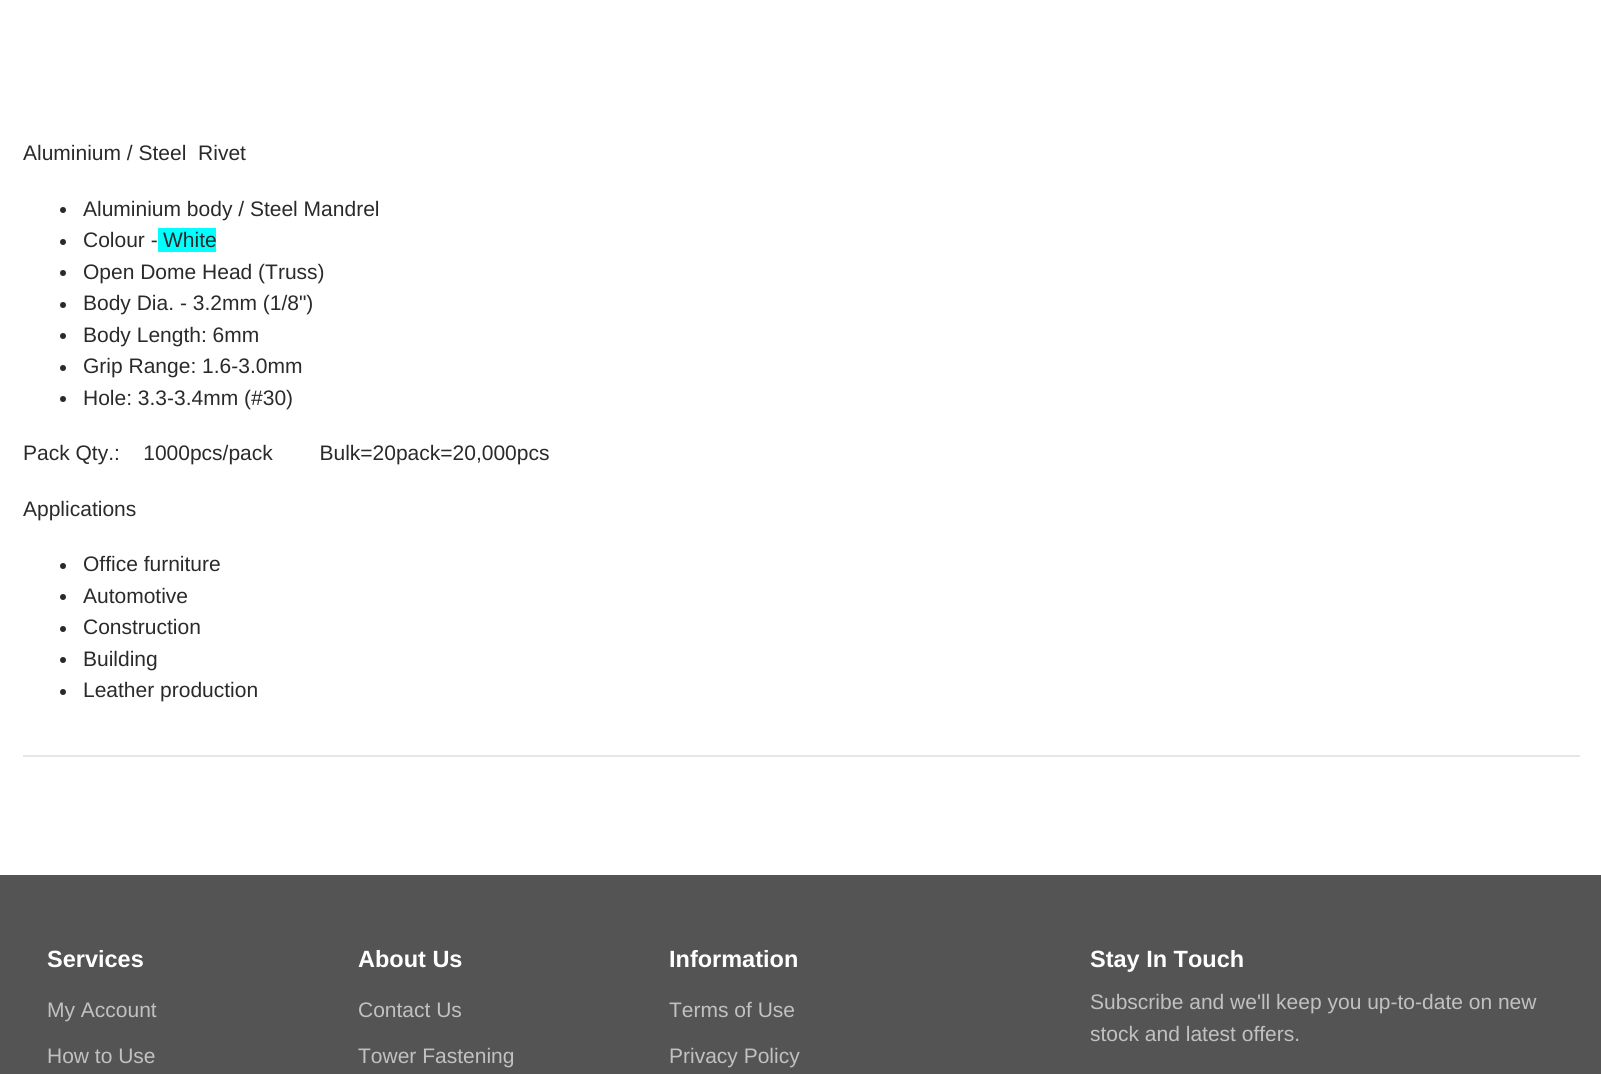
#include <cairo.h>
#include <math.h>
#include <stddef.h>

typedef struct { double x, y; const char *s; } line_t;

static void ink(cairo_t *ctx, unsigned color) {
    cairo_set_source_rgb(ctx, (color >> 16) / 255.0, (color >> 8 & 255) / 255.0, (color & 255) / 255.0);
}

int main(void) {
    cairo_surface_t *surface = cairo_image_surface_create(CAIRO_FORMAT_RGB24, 1601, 1074);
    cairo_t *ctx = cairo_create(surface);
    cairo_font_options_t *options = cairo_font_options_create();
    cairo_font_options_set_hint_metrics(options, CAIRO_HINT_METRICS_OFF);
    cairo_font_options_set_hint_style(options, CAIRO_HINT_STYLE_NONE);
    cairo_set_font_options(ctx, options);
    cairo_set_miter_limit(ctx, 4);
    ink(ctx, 0xFFFFFF);
    cairo_paint(ctx);
    cairo_select_font_face(ctx, "Liberation Sans", CAIRO_FONT_SLANT_NORMAL, CAIRO_FONT_WEIGHT_NORMAL);
    cairo_set_font_size(ctx, 21);
    ink(ctx, 0x2A2A2A);
    cairo_move_to(ctx, 23, 160);
    cairo_show_text(ctx, "Aluminium / Steel  Rivet");
    cairo_new_path(ctx);
    cairo_arc(ctx, 63, 210, 3, 0, 2 * M_PI);
    cairo_fill(ctx);
    cairo_move_to(ctx, 83, 216);
    cairo_show_text(ctx, "Aluminium body / Steel Mandrel");
    cairo_new_path(ctx);
    cairo_arc(ctx, 63, 242, 3, 0, 2 * M_PI);
    cairo_fill(ctx);
    cairo_move_to(ctx, 83, 247);
    cairo_show_text(ctx, "Colour -");
    ink(ctx, 0x00FFFF);
    cairo_rectangle(ctx, 158, 228, 58, 24);
    cairo_fill(ctx);
    ink(ctx, 0x2A2A2A);
    cairo_move_to(ctx, 163, 247);
    cairo_show_text(ctx, "White");
    cairo_new_path(ctx);
    cairo_arc(ctx, 63, 273, 3, 0, 2 * M_PI);
    cairo_fill(ctx);
    cairo_move_to(ctx, 83, 279);
    cairo_show_text(ctx, "Open Dome Head (Truss)");
    cairo_new_path(ctx);
    cairo_arc(ctx, 63, 305, 3, 0, 2 * M_PI);
    cairo_fill(ctx);
    cairo_move_to(ctx, 83, 310);
    cairo_show_text(ctx, "Body Dia. - 3.2mm (1/8\")");
    cairo_new_path(ctx);
    cairo_arc(ctx, 63, 336, 3, 0, 2 * M_PI);
    cairo_fill(ctx);
    cairo_move_to(ctx, 83, 342);
    cairo_show_text(ctx, "Body Length: 6mm");
    cairo_new_path(ctx);
    cairo_arc(ctx, 63, 368, 3, 0, 2 * M_PI);
    cairo_fill(ctx);
    cairo_move_to(ctx, 83, 373);
    cairo_show_text(ctx, "Grip Range: 1.6-3.0mm");
    cairo_new_path(ctx);
    cairo_arc(ctx, 63, 399, 3, 0, 2 * M_PI);
    cairo_fill(ctx);
    {
        static const line_t items[] = {
            {83, 405, "Hole: 3.3-3.4mm (#30)"},
            {23, 460, "Pack Qty.:    1000pcs/pack        Bulk=20pack=20,000pcs"},
            {23, 516, "Applications"},
        };
        for (size_t i = 0; i < sizeof items / sizeof *items; i++) {
            cairo_move_to(ctx, items[i].x, items[i].y);
            cairo_show_text(ctx, items[i].s);
        }
    }
    cairo_new_path(ctx);
    cairo_arc(ctx, 63, 566, 3, 0, 2 * M_PI);
    cairo_fill(ctx);
    cairo_move_to(ctx, 83, 571);
    cairo_show_text(ctx, "Office furniture");
    cairo_new_path(ctx);
    cairo_arc(ctx, 63, 597, 3, 0, 2 * M_PI);
    cairo_fill(ctx);
    cairo_move_to(ctx, 83, 603);
    cairo_show_text(ctx, "Automotive");
    cairo_new_path(ctx);
    cairo_arc(ctx, 63, 629, 3, 0, 2 * M_PI);
    cairo_fill(ctx);
    cairo_move_to(ctx, 83, 634);
    cairo_show_text(ctx, "Construction");
    cairo_new_path(ctx);
    cairo_arc(ctx, 63, 660, 3, 0, 2 * M_PI);
    cairo_fill(ctx);
    cairo_move_to(ctx, 83, 666);
    cairo_show_text(ctx, "Building");
    cairo_new_path(ctx);
    cairo_arc(ctx, 63, 692, 3, 0, 2 * M_PI);
    cairo_fill(ctx);
    cairo_move_to(ctx, 83, 697);
    cairo_show_text(ctx, "Leather production");
    ink(ctx, 0xE6E6E6);
    cairo_rectangle(ctx, 23, 755, 1557, 2);
    cairo_fill(ctx);
    ink(ctx, 0x545454);
    cairo_rectangle(ctx, 0, 875, 1601, 199);
    cairo_fill(ctx);
    cairo_select_font_face(ctx, "Liberation Sans", CAIRO_FONT_SLANT_NORMAL, CAIRO_FONT_WEIGHT_BOLD);
    cairo_set_font_size(ctx, 23.5);
    ink(ctx, 0xFFFFFF);
    cairo_move_to(ctx, 47, 967);
    cairo_show_text(ctx, "Services");
    cairo_select_font_face(ctx, "Liberation Sans", CAIRO_FONT_SLANT_NORMAL, CAIRO_FONT_WEIGHT_NORMAL);
    cairo_set_font_size(ctx, 21);
    ink(ctx, 0xC1C1C1);
    cairo_move_to(ctx, 47, 1017);
    cairo_show_text(ctx, "My Account");
    cairo_move_to(ctx, 47, 1063);
    cairo_show_text(ctx, "How to Use");
    cairo_select_font_face(ctx, "Liberation Sans", CAIRO_FONT_SLANT_NORMAL, CAIRO_FONT_WEIGHT_BOLD);
    cairo_set_font_size(ctx, 23.5);
    ink(ctx, 0xFFFFFF);
    cairo_move_to(ctx, 358, 967);
    cairo_show_text(ctx, "About Us");
    cairo_select_font_face(ctx, "Liberation Sans", CAIRO_FONT_SLANT_NORMAL, CAIRO_FONT_WEIGHT_NORMAL);
    cairo_set_font_size(ctx, 21);
    ink(ctx, 0xC1C1C1);
    cairo_move_to(ctx, 358, 1017);
    cairo_show_text(ctx, "Contact Us");
    cairo_move_to(ctx, 358, 1063);
    cairo_show_text(ctx, "Tower Fastening");
    cairo_select_font_face(ctx, "Liberation Sans", CAIRO_FONT_SLANT_NORMAL, CAIRO_FONT_WEIGHT_BOLD);
    cairo_set_font_size(ctx, 23.5);
    ink(ctx, 0xFFFFFF);
    cairo_move_to(ctx, 669, 967);
    cairo_show_text(ctx, "Information");
    cairo_select_font_face(ctx, "Liberation Sans", CAIRO_FONT_SLANT_NORMAL, CAIRO_FONT_WEIGHT_NORMAL);
    cairo_set_font_size(ctx, 21);
    ink(ctx, 0xC1C1C1);
    cairo_move_to(ctx, 669, 1017);
    cairo_show_text(ctx, "Terms of Use");
    cairo_move_to(ctx, 669, 1063);
    cairo_show_text(ctx, "Privacy Policy");
    cairo_select_font_face(ctx, "Liberation Sans", CAIRO_FONT_SLANT_NORMAL, CAIRO_FONT_WEIGHT_BOLD);
    cairo_set_font_size(ctx, 23.5);
    ink(ctx, 0xFFFFFF);
    cairo_move_to(ctx, 1090, 967);
    cairo_show_text(ctx, "Stay In Touch");
    cairo_select_font_face(ctx, "Liberation Sans", CAIRO_FONT_SLANT_NORMAL, CAIRO_FONT_WEIGHT_NORMAL);
    cairo_set_font_size(ctx, 21);
    ink(ctx, 0xC1C1C1);
    cairo_move_to(ctx, 1090, 1009);
    cairo_show_text(ctx, "Subscribe and we'll keep you up-to-date on new");
    cairo_move_to(ctx, 1090, 1041);
    cairo_show_text(ctx, "stock and latest offers.");
    cairo_surface_write_to_png(surface, "image.png");
    cairo_font_options_destroy(options);
    cairo_destroy(ctx);
    cairo_surface_destroy(surface);
    return 0;
}
